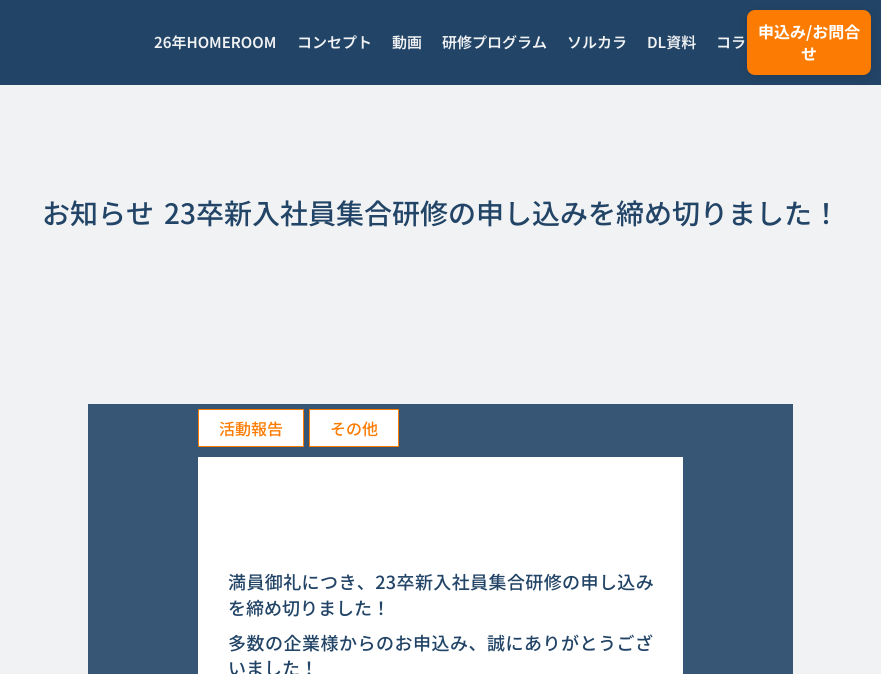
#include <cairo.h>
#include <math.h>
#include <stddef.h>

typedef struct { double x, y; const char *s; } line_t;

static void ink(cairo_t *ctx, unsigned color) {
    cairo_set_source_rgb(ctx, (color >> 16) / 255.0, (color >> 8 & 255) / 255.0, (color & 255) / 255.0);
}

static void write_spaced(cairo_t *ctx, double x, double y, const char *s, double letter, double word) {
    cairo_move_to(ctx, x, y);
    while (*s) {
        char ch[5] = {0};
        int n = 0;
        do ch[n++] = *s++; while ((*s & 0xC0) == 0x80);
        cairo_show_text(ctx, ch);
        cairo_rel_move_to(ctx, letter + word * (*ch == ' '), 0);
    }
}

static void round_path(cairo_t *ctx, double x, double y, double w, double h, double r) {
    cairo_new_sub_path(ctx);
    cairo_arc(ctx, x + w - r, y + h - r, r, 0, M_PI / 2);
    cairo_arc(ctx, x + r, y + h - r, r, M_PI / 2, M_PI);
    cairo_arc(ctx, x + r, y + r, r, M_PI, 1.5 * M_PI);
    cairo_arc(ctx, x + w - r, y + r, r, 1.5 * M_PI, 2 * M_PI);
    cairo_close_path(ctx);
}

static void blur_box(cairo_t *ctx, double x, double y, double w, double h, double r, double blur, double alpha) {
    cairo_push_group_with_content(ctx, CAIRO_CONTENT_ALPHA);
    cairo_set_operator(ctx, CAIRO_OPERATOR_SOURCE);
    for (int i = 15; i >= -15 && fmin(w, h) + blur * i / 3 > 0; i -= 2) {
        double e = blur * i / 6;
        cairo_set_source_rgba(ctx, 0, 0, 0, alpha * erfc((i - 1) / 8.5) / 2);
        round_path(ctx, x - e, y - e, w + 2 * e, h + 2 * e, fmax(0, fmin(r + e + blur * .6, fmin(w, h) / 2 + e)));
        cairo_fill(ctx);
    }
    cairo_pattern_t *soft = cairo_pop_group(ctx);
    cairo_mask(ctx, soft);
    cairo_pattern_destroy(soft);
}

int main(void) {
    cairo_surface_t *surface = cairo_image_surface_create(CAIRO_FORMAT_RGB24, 881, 674);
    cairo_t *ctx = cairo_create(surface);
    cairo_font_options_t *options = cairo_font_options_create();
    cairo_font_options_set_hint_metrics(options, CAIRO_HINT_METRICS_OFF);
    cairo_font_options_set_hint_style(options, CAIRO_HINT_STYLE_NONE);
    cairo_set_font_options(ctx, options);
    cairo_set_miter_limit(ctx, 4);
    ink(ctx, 0xF0F2F4);
    cairo_paint(ctx);
    ink(ctx, 0x224466);
    cairo_rectangle(ctx, 0, 0, 881, 85);
    cairo_fill(ctx);
    cairo_select_font_face(ctx, "Noto Sans JP SemiBold", CAIRO_FONT_SLANT_NORMAL, CAIRO_FONT_WEIGHT_NORMAL);
    cairo_set_font_size(ctx, 15);
    ink(ctx, 0xF0F2F4);
    {
        static const line_t items[] = {
            {154, 48, "26年HOMEROOM"},
            {297, 48, "コンセプト"},
            {392, 48, "動画"},
            {442, 48, "研修プログラム"},
            {567, 48, "ソルカラ"},
            {647, 48, "DL資料"},
            {716, 48, "コラ"},
        };
        for (size_t i = 0; i < sizeof items / sizeof *items; i++) {
            cairo_move_to(ctx, items[i].x, items[i].y);
            cairo_show_text(ctx, items[i].s);
        }
    }
    ink(ctx, 0x000000);
    blur_box(ctx, 748, 13, 124, 65, 8, 5, 0.1);
    ink(ctx, 0xFC7C03);
    round_path(ctx, 747, 10, 124, 65, 8);
    cairo_fill(ctx);
    cairo_select_font_face(ctx, "Noto Sans JP", CAIRO_FONT_SLANT_NORMAL, CAIRO_FONT_WEIGHT_BOLD);
    cairo_set_font_size(ctx, 16);
    ink(ctx, 0xFFFFFF);
    cairo_move_to(ctx, 758, 38);
    cairo_show_text(ctx, "申込み/お問合");
    cairo_move_to(ctx, 801, 60);
    cairo_show_text(ctx, "せ");
    cairo_select_font_face(ctx, "Noto Sans JP Medium", CAIRO_FONT_SLANT_NORMAL, CAIRO_FONT_WEIGHT_NORMAL);
    cairo_set_font_size(ctx, 28);
    ink(ctx, 0x224466);
    cairo_move_to(ctx, 42, 224);
    cairo_show_text(ctx, "お知らせ");
    cairo_move_to(ctx, 164, 224);
    cairo_show_text(ctx, "23卒新入社員集合研修の申し込みを締め切りました！");
    ink(ctx, 0x375574);
    cairo_rectangle(ctx, 88, 404, 705, 270);
    cairo_fill(ctx);
    ink(ctx, 0xFFFFFF);
    cairo_rectangle(ctx, 198.5, 409.5, 105, 37);
    cairo_fill_preserve(ctx);
    ink(ctx, 0xFC7C03);
    cairo_set_line_width(ctx, 1);
    cairo_stroke(ctx);
    cairo_set_font_size(ctx, 16);
    cairo_move_to(ctx, 219, 435);
    cairo_show_text(ctx, "活動報告");
    ink(ctx, 0xFFFFFF);
    cairo_rectangle(ctx, 309.5, 409.5, 89, 37);
    cairo_fill_preserve(ctx);
    ink(ctx, 0xFC7C03);
    cairo_stroke(ctx);
    cairo_move_to(ctx, 330, 435);
    cairo_show_text(ctx, "その他");
    ink(ctx, 0xFFFFFF);
    cairo_rectangle(ctx, 198, 457, 485, 217);
    cairo_fill(ctx);
    cairo_set_font_size(ctx, 18);
    ink(ctx, 0x224466);
    write_spaced(ctx, 228, 589, "満員御礼につき、23卒新入社員集合研修の申し込み", 0.4, 0);
    cairo_move_to(ctx, 228, 615);
    cairo_show_text(ctx, "を締め切りました！");
    write_spaced(ctx, 228, 650, "多数の企業様からのお申込み、誠にありがとうござ", 0.5, 0);
    cairo_move_to(ctx, 228, 675);
    cairo_show_text(ctx, "いました！");
    cairo_surface_write_to_png(surface, "image.png");
    cairo_font_options_destroy(options);
    cairo_destroy(ctx);
    cairo_surface_destroy(surface);
    return 0;
}
